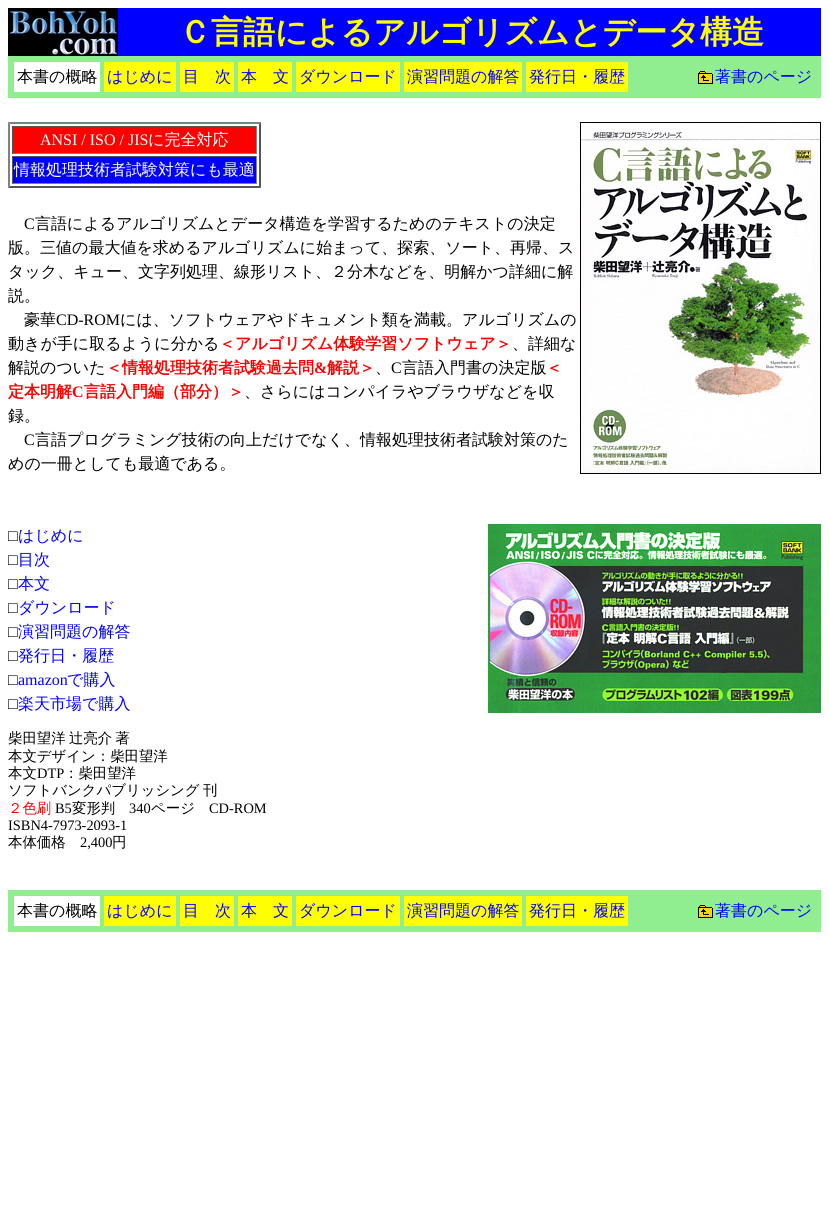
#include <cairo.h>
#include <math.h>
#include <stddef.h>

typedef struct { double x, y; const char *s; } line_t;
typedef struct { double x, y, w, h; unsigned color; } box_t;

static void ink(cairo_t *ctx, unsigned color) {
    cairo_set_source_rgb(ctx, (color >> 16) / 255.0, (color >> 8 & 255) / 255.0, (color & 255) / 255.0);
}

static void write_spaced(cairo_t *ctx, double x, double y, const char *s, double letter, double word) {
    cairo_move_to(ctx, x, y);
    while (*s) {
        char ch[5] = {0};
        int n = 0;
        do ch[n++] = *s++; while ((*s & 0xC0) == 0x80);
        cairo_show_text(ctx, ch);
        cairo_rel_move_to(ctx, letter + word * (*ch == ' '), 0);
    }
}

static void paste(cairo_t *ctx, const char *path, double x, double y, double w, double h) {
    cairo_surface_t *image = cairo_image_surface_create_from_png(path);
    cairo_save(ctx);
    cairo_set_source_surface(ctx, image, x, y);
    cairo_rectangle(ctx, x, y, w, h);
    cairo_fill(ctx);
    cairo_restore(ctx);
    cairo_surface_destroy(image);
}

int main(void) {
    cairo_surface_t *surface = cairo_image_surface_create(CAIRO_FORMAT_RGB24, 829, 1220);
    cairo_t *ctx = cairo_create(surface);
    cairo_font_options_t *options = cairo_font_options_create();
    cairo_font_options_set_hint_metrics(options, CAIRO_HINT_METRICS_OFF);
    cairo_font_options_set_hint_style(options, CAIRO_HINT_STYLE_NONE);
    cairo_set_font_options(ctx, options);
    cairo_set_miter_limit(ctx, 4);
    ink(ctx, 0xFFFFFF);
    cairo_paint(ctx);
    paste(ctx, "media/1.png", 8, 8, 110, 48);
    ink(ctx, 0x0000FF);
    cairo_rectangle(ctx, 118, 8, 703, 48);
    cairo_fill(ctx);
    cairo_select_font_face(ctx, "WenQuanYi Zen Hei", CAIRO_FONT_SLANT_NORMAL, CAIRO_FONT_WEIGHT_BOLD);
    cairo_set_font_size(ctx, 32);
    ink(ctx, 0xFFFF00);
    cairo_move_to(ctx, 179, 43);
    cairo_show_text(ctx, "Ｃ言語によるアルゴリズムとデータ構造");
    ink(ctx, 0x90EE90);
    cairo_rectangle(ctx, 8, 56, 813, 42);
    cairo_fill(ctx);
    ink(ctx, 0xFFFFFF);
    cairo_rectangle(ctx, 14, 62, 86, 30);
    cairo_fill(ctx);
    cairo_select_font_face(ctx, "WenQuanYi Zen Hei Medium", CAIRO_FONT_SLANT_NORMAL, CAIRO_FONT_WEIGHT_NORMAL);
    cairo_set_font_size(ctx, 16);
    ink(ctx, 0x000000);
    cairo_move_to(ctx, 17, 82);
    cairo_show_text(ctx, "本書の概略");
    ink(ctx, 0xFFFF00);
    cairo_rectangle(ctx, 104, 62, 72, 30);
    cairo_fill(ctx);
    ink(ctx, 0x0000FF);
    cairo_move_to(ctx, 107, 82);
    cairo_show_text(ctx, "はじめに");
    ink(ctx, 0xFFFF00);
    cairo_rectangle(ctx, 180, 62, 54, 30);
    cairo_fill(ctx);
    ink(ctx, 0x0000FF);
    cairo_move_to(ctx, 183, 82);
    cairo_show_text(ctx, "目　次");
    ink(ctx, 0xFFFF00);
    cairo_rectangle(ctx, 238, 62, 54, 30);
    cairo_fill(ctx);
    ink(ctx, 0x0000FF);
    cairo_move_to(ctx, 241, 82);
    cairo_show_text(ctx, "本　文");
    ink(ctx, 0xFFFF00);
    cairo_rectangle(ctx, 296, 62, 104, 30);
    cairo_fill(ctx);
    ink(ctx, 0x0000FF);
    cairo_move_to(ctx, 299, 82);
    cairo_show_text(ctx, "ダウンロード");
    ink(ctx, 0xFFFF00);
    cairo_rectangle(ctx, 404, 62, 118, 30);
    cairo_fill(ctx);
    ink(ctx, 0x0000FF);
    cairo_move_to(ctx, 407, 82);
    cairo_show_text(ctx, "演習問題の解答");
    ink(ctx, 0xFFFF00);
    cairo_rectangle(ctx, 526, 62, 102, 30);
    cairo_fill(ctx);
    ink(ctx, 0x0000FF);
    cairo_move_to(ctx, 529, 82);
    cairo_show_text(ctx, "発行日・履歴");
    paste(ctx, "media/2.png", 698, 71, 15, 13);
    cairo_move_to(ctx, 715, 82);
    cairo_show_text(ctx, "著書のページ");
    ink(ctx, 0x808080);
    cairo_new_path(ctx);
    cairo_move_to(ctx, 8, 122);
    cairo_line_to(ctx, 261, 122);
    cairo_line_to(ctx, 259, 124);
    cairo_line_to(ctx, 10, 124);
    cairo_close_path(ctx);
    cairo_fill(ctx);
    ink(ctx, 0x555555);
    cairo_new_path(ctx);
    cairo_move_to(ctx, 261, 122);
    cairo_line_to(ctx, 261, 188);
    cairo_line_to(ctx, 259, 186);
    cairo_line_to(ctx, 259, 124);
    cairo_close_path(ctx);
    cairo_fill(ctx);
    cairo_new_path(ctx);
    cairo_move_to(ctx, 261, 188);
    cairo_line_to(ctx, 8, 188);
    cairo_line_to(ctx, 10, 186);
    cairo_line_to(ctx, 259, 186);
    cairo_close_path(ctx);
    cairo_fill(ctx);
    ink(ctx, 0x808080);
    cairo_new_path(ctx);
    cairo_move_to(ctx, 8, 188);
    cairo_line_to(ctx, 8, 122);
    cairo_line_to(ctx, 10, 124);
    cairo_line_to(ctx, 10, 186);
    cairo_close_path(ctx);
    cairo_fill(ctx);
    {
        static const box_t items[] = {
            {13, 127, 243, 26, 0xFF0000},
            {12, 126, 245, 1, 0x555555},
            {256, 126, 1, 28, 0x808080},
            {12, 153, 245, 1, 0x808080},
            {12, 126, 1, 28, 0x555555},
        };
        for (size_t i = 0; i < sizeof items / sizeof *items; i++) {
            ink(ctx, items[i].color);
            cairo_rectangle(ctx, items[i].x, items[i].y, items[i].w, items[i].h);
            cairo_fill(ctx);
        }
    }
    cairo_select_font_face(ctx, "Liberation Serif", CAIRO_FONT_SLANT_NORMAL, CAIRO_FONT_WEIGHT_NORMAL);
    ink(ctx, 0xFFFFFF);
    cairo_move_to(ctx, 40, 145);
    cairo_show_text(ctx, "ANSI / ISO / JIS");
    cairo_select_font_face(ctx, "WenQuanYi Zen Hei Medium", CAIRO_FONT_SLANT_NORMAL, CAIRO_FONT_WEIGHT_NORMAL);
    cairo_move_to(ctx, 148, 145);
    cairo_show_text(ctx, "に完全対応");
    {
        static const box_t items[] = {
            {13, 157, 243, 26, 0x0000FF},
            {12, 156, 245, 1, 0x555555},
            {256, 156, 1, 28, 0x808080},
            {12, 183, 245, 1, 0x808080},
            {12, 156, 1, 28, 0x555555},
        };
        for (size_t i = 0; i < sizeof items / sizeof *items; i++) {
            ink(ctx, items[i].color);
            cairo_rectangle(ctx, items[i].x, items[i].y, items[i].w, items[i].h);
            cairo_fill(ctx);
        }
    }
    ink(ctx, 0xFFFFFF);
    cairo_move_to(ctx, 14, 175);
    cairo_show_text(ctx, "情報処理技術者試験対策にも最適");
    cairo_rectangle(ctx, 580.5, 122.5, 240, 351);
    ink(ctx, 0x000000);
    cairo_set_line_width(ctx, 1);
    cairo_stroke(ctx);
    paste(ctx, "media/3.png", 581, 123, 239, 350);
    cairo_select_font_face(ctx, "Liberation Serif", CAIRO_FONT_SLANT_NORMAL, CAIRO_FONT_WEIGHT_NORMAL);
    cairo_move_to(ctx, 24, 229);
    cairo_show_text(ctx, "C");
    cairo_select_font_face(ctx, "WenQuanYi Zen Hei Medium", CAIRO_FONT_SLANT_NORMAL, CAIRO_FONT_WEIGHT_NORMAL);
    {
        static const line_t items[] = {
            {35, 229, "言語によるアルゴリズムとデータ構造を学習するためのテキストの決定"},
            {8, 253, "版。三値の最大値を求めるアルゴリズムに始まって、探索、ソート、再帰、ス"},
            {8, 277, "タック、キュー、文字列処理、線形リスト、２分木などを、明解かつ詳細に解"},
            {8, 301, "説。"},
            {24, 325, "豪華"},
        };
        for (size_t i = 0; i < sizeof items / sizeof *items; i++) {
            cairo_move_to(ctx, items[i].x, items[i].y);
            cairo_show_text(ctx, items[i].s);
        }
    }
    cairo_select_font_face(ctx, "Liberation Serif", CAIRO_FONT_SLANT_NORMAL, CAIRO_FONT_WEIGHT_NORMAL);
    cairo_move_to(ctx, 56, 325);
    cairo_show_text(ctx, "CD-ROM");
    cairo_select_font_face(ctx, "WenQuanYi Zen Hei Medium", CAIRO_FONT_SLANT_NORMAL, CAIRO_FONT_WEIGHT_NORMAL);
    cairo_move_to(ctx, 120, 325);
    cairo_show_text(ctx, "には、ソフトウェアやドキュメント類を満載。アルゴリズムの");
    cairo_move_to(ctx, 8, 349);
    cairo_show_text(ctx, "動きが手に取るように分かる");
    cairo_select_font_face(ctx, "WenQuanYi Zen Hei", CAIRO_FONT_SLANT_NORMAL, CAIRO_FONT_WEIGHT_BOLD);
    ink(ctx, 0xFF0000);
    cairo_move_to(ctx, 219, 349);
    cairo_show_text(ctx, "＜アルゴリズム体験学習ソフトウェア＞");
    cairo_select_font_face(ctx, "WenQuanYi Zen Hei Medium", CAIRO_FONT_SLANT_NORMAL, CAIRO_FONT_WEIGHT_NORMAL);
    ink(ctx, 0x000000);
    cairo_move_to(ctx, 512, 349);
    cairo_show_text(ctx, "、詳細な");
    cairo_move_to(ctx, 8, 373);
    cairo_show_text(ctx, "解説のついた");
    cairo_select_font_face(ctx, "WenQuanYi Zen Hei", CAIRO_FONT_SLANT_NORMAL, CAIRO_FONT_WEIGHT_BOLD);
    ink(ctx, 0xFF0000);
    cairo_move_to(ctx, 106, 373);
    cairo_show_text(ctx, "＜情報処理技術者試験過去問");
    cairo_select_font_face(ctx, "Liberation Serif", CAIRO_FONT_SLANT_NORMAL, CAIRO_FONT_WEIGHT_BOLD);
    cairo_move_to(ctx, 314, 373);
    cairo_show_text(ctx, "&");
    cairo_select_font_face(ctx, "WenQuanYi Zen Hei", CAIRO_FONT_SLANT_NORMAL, CAIRO_FONT_WEIGHT_BOLD);
    cairo_move_to(ctx, 327, 373);
    cairo_show_text(ctx, "解説＞");
    cairo_select_font_face(ctx, "Liberation Serif", CAIRO_FONT_SLANT_NORMAL, CAIRO_FONT_WEIGHT_NORMAL);
    ink(ctx, 0x000000);
    cairo_move_to(ctx, 391, 373);
    cairo_show_text(ctx, "C");
    cairo_select_font_face(ctx, "WenQuanYi Zen Hei Medium", CAIRO_FONT_SLANT_NORMAL, CAIRO_FONT_WEIGHT_NORMAL);
    cairo_move_to(ctx, 402, 373);
    cairo_show_text(ctx, "言語入門書の決定版");
    cairo_select_font_face(ctx, "WenQuanYi Zen Hei", CAIRO_FONT_SLANT_NORMAL, CAIRO_FONT_WEIGHT_BOLD);
    ink(ctx, 0xFF0000);
    cairo_move_to(ctx, 546, 373);
    cairo_show_text(ctx, "＜");
    cairo_select_font_face(ctx, "WenQuanYi Zen Hei Medium", CAIRO_FONT_SLANT_NORMAL, CAIRO_FONT_WEIGHT_NORMAL);
    ink(ctx, 0x000000);
    cairo_move_to(ctx, 375, 373);
    cairo_show_text(ctx, "、");
    cairo_select_font_face(ctx, "WenQuanYi Zen Hei", CAIRO_FONT_SLANT_NORMAL, CAIRO_FONT_WEIGHT_BOLD);
    ink(ctx, 0xFF0000);
    cairo_move_to(ctx, 8, 397);
    cairo_show_text(ctx, "定本明解");
    cairo_select_font_face(ctx, "Liberation Serif", CAIRO_FONT_SLANT_NORMAL, CAIRO_FONT_WEIGHT_BOLD);
    cairo_move_to(ctx, 72, 397);
    cairo_show_text(ctx, "C");
    cairo_select_font_face(ctx, "WenQuanYi Zen Hei", CAIRO_FONT_SLANT_NORMAL, CAIRO_FONT_WEIGHT_BOLD);
    cairo_move_to(ctx, 84, 397);
    cairo_show_text(ctx, "言語入門編（部分）＞");
    cairo_select_font_face(ctx, "WenQuanYi Zen Hei Medium", CAIRO_FONT_SLANT_NORMAL, CAIRO_FONT_WEIGHT_NORMAL);
    ink(ctx, 0x000000);
    cairo_move_to(ctx, 244, 397);
    cairo_show_text(ctx, "、さらにはコンパイラやブラウザなどを収");
    cairo_move_to(ctx, 8, 421);
    cairo_show_text(ctx, "録。");
    cairo_select_font_face(ctx, "Liberation Serif", CAIRO_FONT_SLANT_NORMAL, CAIRO_FONT_WEIGHT_NORMAL);
    cairo_move_to(ctx, 24, 445);
    cairo_show_text(ctx, "C");
    cairo_select_font_face(ctx, "WenQuanYi Zen Hei Medium", CAIRO_FONT_SLANT_NORMAL, CAIRO_FONT_WEIGHT_NORMAL);
    cairo_move_to(ctx, 35, 445);
    cairo_show_text(ctx, "言語プログラミング技術の向上だけでなく、情報処理技術者試験対策のた");
    cairo_move_to(ctx, 8, 469);
    cairo_show_text(ctx, "めの一冊としても最適である。");
    cairo_select_font_face(ctx, "Liberation Serif", CAIRO_FONT_SLANT_NORMAL, CAIRO_FONT_WEIGHT_NORMAL);
    cairo_move_to(ctx, 8, 541);
    cairo_show_text(ctx, "□");
    cairo_select_font_face(ctx, "WenQuanYi Zen Hei Medium", CAIRO_FONT_SLANT_NORMAL, CAIRO_FONT_WEIGHT_NORMAL);
    ink(ctx, 0x0000FF);
    cairo_move_to(ctx, 18, 541);
    cairo_show_text(ctx, "はじめに");
    paste(ctx, "media/4.png", 488, 524, 333, 189);
    cairo_select_font_face(ctx, "Liberation Serif", CAIRO_FONT_SLANT_NORMAL, CAIRO_FONT_WEIGHT_NORMAL);
    ink(ctx, 0x000000);
    cairo_move_to(ctx, 8, 565);
    cairo_show_text(ctx, "□");
    cairo_select_font_face(ctx, "WenQuanYi Zen Hei Medium", CAIRO_FONT_SLANT_NORMAL, CAIRO_FONT_WEIGHT_NORMAL);
    ink(ctx, 0x0000FF);
    cairo_move_to(ctx, 18, 565);
    cairo_show_text(ctx, "目次");
    cairo_select_font_face(ctx, "Liberation Serif", CAIRO_FONT_SLANT_NORMAL, CAIRO_FONT_WEIGHT_NORMAL);
    ink(ctx, 0x000000);
    cairo_move_to(ctx, 8, 589);
    cairo_show_text(ctx, "□");
    cairo_select_font_face(ctx, "WenQuanYi Zen Hei Medium", CAIRO_FONT_SLANT_NORMAL, CAIRO_FONT_WEIGHT_NORMAL);
    ink(ctx, 0x0000FF);
    cairo_move_to(ctx, 18, 589);
    cairo_show_text(ctx, "本文");
    cairo_select_font_face(ctx, "Liberation Serif", CAIRO_FONT_SLANT_NORMAL, CAIRO_FONT_WEIGHT_NORMAL);
    ink(ctx, 0x000000);
    cairo_move_to(ctx, 8, 613);
    cairo_show_text(ctx, "□");
    cairo_select_font_face(ctx, "WenQuanYi Zen Hei Medium", CAIRO_FONT_SLANT_NORMAL, CAIRO_FONT_WEIGHT_NORMAL);
    ink(ctx, 0x0000FF);
    cairo_move_to(ctx, 18, 613);
    cairo_show_text(ctx, "ダウンロード");
    cairo_select_font_face(ctx, "Liberation Serif", CAIRO_FONT_SLANT_NORMAL, CAIRO_FONT_WEIGHT_NORMAL);
    ink(ctx, 0x000000);
    cairo_move_to(ctx, 8, 637);
    cairo_show_text(ctx, "□");
    cairo_select_font_face(ctx, "WenQuanYi Zen Hei Medium", CAIRO_FONT_SLANT_NORMAL, CAIRO_FONT_WEIGHT_NORMAL);
    ink(ctx, 0x0000FF);
    cairo_move_to(ctx, 18, 637);
    cairo_show_text(ctx, "演習問題の解答");
    cairo_select_font_face(ctx, "Liberation Serif", CAIRO_FONT_SLANT_NORMAL, CAIRO_FONT_WEIGHT_NORMAL);
    ink(ctx, 0x000000);
    cairo_move_to(ctx, 8, 661);
    cairo_show_text(ctx, "□");
    cairo_select_font_face(ctx, "WenQuanYi Zen Hei Medium", CAIRO_FONT_SLANT_NORMAL, CAIRO_FONT_WEIGHT_NORMAL);
    ink(ctx, 0x0000FF);
    cairo_move_to(ctx, 18, 661);
    cairo_show_text(ctx, "発行日・履歴");
    cairo_select_font_face(ctx, "Liberation Serif", CAIRO_FONT_SLANT_NORMAL, CAIRO_FONT_WEIGHT_NORMAL);
    ink(ctx, 0x000000);
    cairo_move_to(ctx, 8, 685);
    cairo_show_text(ctx, "□");
    ink(ctx, 0x0000FF);
    cairo_move_to(ctx, 18, 685);
    cairo_show_text(ctx, "amazon");
    cairo_select_font_face(ctx, "WenQuanYi Zen Hei Medium", CAIRO_FONT_SLANT_NORMAL, CAIRO_FONT_WEIGHT_NORMAL);
    cairo_move_to(ctx, 67, 685);
    cairo_show_text(ctx, "で購入");
    cairo_select_font_face(ctx, "Liberation Serif", CAIRO_FONT_SLANT_NORMAL, CAIRO_FONT_WEIGHT_NORMAL);
    ink(ctx, 0x000000);
    cairo_move_to(ctx, 8, 709);
    cairo_show_text(ctx, "□");
    cairo_select_font_face(ctx, "WenQuanYi Zen Hei Medium", CAIRO_FONT_SLANT_NORMAL, CAIRO_FONT_WEIGHT_NORMAL);
    ink(ctx, 0x0000FF);
    cairo_move_to(ctx, 18, 709);
    cairo_show_text(ctx, "楽天市場で購入");
    cairo_set_font_size(ctx, 14.4);
    ink(ctx, 0x000000);
    write_spaced(ctx, 8, 743, "柴田望洋 辻亮介 著", 0, -1);
    cairo_move_to(ctx, 8, 761);
    cairo_show_text(ctx, "本文デザイン：柴田望洋");
    cairo_move_to(ctx, 8, 778);
    cairo_show_text(ctx, "本文");
    cairo_select_font_face(ctx, "Liberation Serif", CAIRO_FONT_SLANT_NORMAL, CAIRO_FONT_WEIGHT_NORMAL);
    cairo_move_to(ctx, 37, 778);
    cairo_show_text(ctx, "DTP");
    cairo_select_font_face(ctx, "WenQuanYi Zen Hei Medium", CAIRO_FONT_SLANT_NORMAL, CAIRO_FONT_WEIGHT_NORMAL);
    cairo_move_to(ctx, 64, 778);
    cairo_show_text(ctx, "：柴田望洋");
    write_spaced(ctx, 8, 795, "ソフトバンクパブリッシング 刊", 0, -1);
    ink(ctx, 0xFF0000);
    cairo_move_to(ctx, 8, 813);
    cairo_show_text(ctx, "２色刷");
    cairo_select_font_face(ctx, "Liberation Serif", CAIRO_FONT_SLANT_NORMAL, CAIRO_FONT_WEIGHT_NORMAL);
    ink(ctx, 0x000000);
    cairo_move_to(ctx, 55, 813);
    cairo_show_text(ctx, "B5");
    cairo_select_font_face(ctx, "WenQuanYi Zen Hei Medium", CAIRO_FONT_SLANT_NORMAL, CAIRO_FONT_WEIGHT_NORMAL);
    cairo_move_to(ctx, 72, 813);
    cairo_show_text(ctx, "変形判");
    cairo_select_font_face(ctx, "Liberation Serif", CAIRO_FONT_SLANT_NORMAL, CAIRO_FONT_WEIGHT_NORMAL);
    cairo_move_to(ctx, 129, 813);
    cairo_show_text(ctx, "340");
    cairo_select_font_face(ctx, "WenQuanYi Zen Hei Medium", CAIRO_FONT_SLANT_NORMAL, CAIRO_FONT_WEIGHT_NORMAL);
    cairo_move_to(ctx, 151, 813);
    cairo_show_text(ctx, "ページ");
    cairo_select_font_face(ctx, "Liberation Serif", CAIRO_FONT_SLANT_NORMAL, CAIRO_FONT_WEIGHT_NORMAL);
    cairo_move_to(ctx, 209, 813);
    cairo_show_text(ctx, "CD-ROM");
    cairo_move_to(ctx, 8, 830);
    cairo_show_text(ctx, "ISBN4-7973-2093-1");
    cairo_select_font_face(ctx, "WenQuanYi Zen Hei Medium", CAIRO_FONT_SLANT_NORMAL, CAIRO_FONT_WEIGHT_NORMAL);
    cairo_move_to(ctx, 8, 847);
    cairo_show_text(ctx, "本体価格");
    cairo_select_font_face(ctx, "Liberation Serif", CAIRO_FONT_SLANT_NORMAL, CAIRO_FONT_WEIGHT_NORMAL);
    cairo_move_to(ctx, 80, 847);
    cairo_show_text(ctx, "2,400");
    cairo_select_font_face(ctx, "WenQuanYi Zen Hei Medium", CAIRO_FONT_SLANT_NORMAL, CAIRO_FONT_WEIGHT_NORMAL);
    cairo_move_to(ctx, 112, 847);
    cairo_show_text(ctx, "円");
    ink(ctx, 0x90EE90);
    cairo_rectangle(ctx, 8, 890, 813, 42);
    cairo_fill(ctx);
    ink(ctx, 0xFFFFFF);
    cairo_rectangle(ctx, 14, 896, 86, 30);
    cairo_fill(ctx);
    cairo_set_font_size(ctx, 16);
    ink(ctx, 0x000000);
    cairo_move_to(ctx, 17, 916);
    cairo_show_text(ctx, "本書の概略");
    ink(ctx, 0xFFFF00);
    cairo_rectangle(ctx, 104, 896, 72, 30);
    cairo_fill(ctx);
    ink(ctx, 0x0000FF);
    cairo_move_to(ctx, 107, 916);
    cairo_show_text(ctx, "はじめに");
    ink(ctx, 0xFFFF00);
    cairo_rectangle(ctx, 180, 896, 54, 30);
    cairo_fill(ctx);
    ink(ctx, 0x0000FF);
    cairo_move_to(ctx, 183, 916);
    cairo_show_text(ctx, "目　次");
    ink(ctx, 0xFFFF00);
    cairo_rectangle(ctx, 238, 896, 54, 30);
    cairo_fill(ctx);
    ink(ctx, 0x0000FF);
    cairo_move_to(ctx, 241, 916);
    cairo_show_text(ctx, "本　文");
    ink(ctx, 0xFFFF00);
    cairo_rectangle(ctx, 296, 896, 104, 30);
    cairo_fill(ctx);
    ink(ctx, 0x0000FF);
    cairo_move_to(ctx, 299, 916);
    cairo_show_text(ctx, "ダウンロード");
    ink(ctx, 0xFFFF00);
    cairo_rectangle(ctx, 404, 896, 118, 30);
    cairo_fill(ctx);
    ink(ctx, 0x0000FF);
    cairo_move_to(ctx, 407, 916);
    cairo_show_text(ctx, "演習問題の解答");
    ink(ctx, 0xFFFF00);
    cairo_rectangle(ctx, 526, 896, 102, 30);
    cairo_fill(ctx);
    ink(ctx, 0x0000FF);
    cairo_move_to(ctx, 529, 916);
    cairo_show_text(ctx, "発行日・履歴");
    paste(ctx, "media/2.png", 698, 905, 15, 13);
    cairo_move_to(ctx, 715, 916);
    cairo_show_text(ctx, "著書のページ");
    cairo_surface_write_to_png(surface, "image.png");
    cairo_font_options_destroy(options);
    cairo_destroy(ctx);
    cairo_surface_destroy(surface);
    return 0;
}
